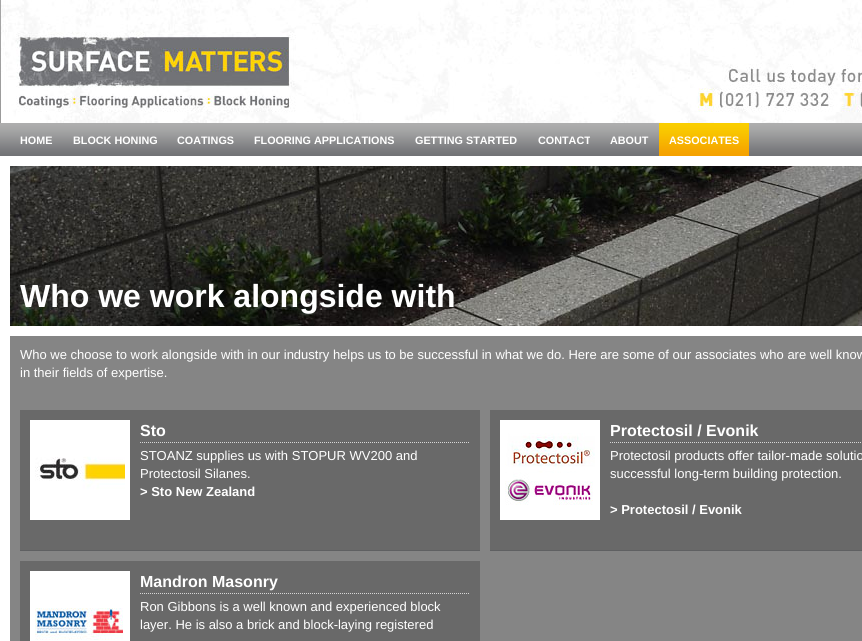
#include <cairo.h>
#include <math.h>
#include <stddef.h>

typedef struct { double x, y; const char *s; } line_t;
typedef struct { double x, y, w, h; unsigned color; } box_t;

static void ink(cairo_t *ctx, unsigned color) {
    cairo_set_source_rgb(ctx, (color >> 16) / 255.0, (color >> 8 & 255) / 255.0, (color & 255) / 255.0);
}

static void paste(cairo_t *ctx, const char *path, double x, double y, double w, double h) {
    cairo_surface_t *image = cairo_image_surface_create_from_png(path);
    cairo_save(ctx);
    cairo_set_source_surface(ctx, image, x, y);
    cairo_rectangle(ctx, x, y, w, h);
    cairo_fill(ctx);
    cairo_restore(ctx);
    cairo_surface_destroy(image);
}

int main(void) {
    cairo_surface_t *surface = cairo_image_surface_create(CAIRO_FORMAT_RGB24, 862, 641);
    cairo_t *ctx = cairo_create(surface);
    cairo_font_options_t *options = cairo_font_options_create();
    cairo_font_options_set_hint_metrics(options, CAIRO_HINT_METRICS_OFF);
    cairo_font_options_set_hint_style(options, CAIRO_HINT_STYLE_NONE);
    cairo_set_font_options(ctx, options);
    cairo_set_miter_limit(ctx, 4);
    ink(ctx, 0xFFFFFF);
    cairo_paint(ctx);
    paste(ctx, "media/1.png", 0, 0, 1, 123);
    paste(ctx, "media/2.png", 1, 0, 689, 123);
    paste(ctx, "media/3.png", 16, 32, 280, 80);
    paste(ctx, "media/4.png", 690, 0, 172, 123);
    paste(ctx, "media/5.png", 0, 123, 862, 33);
    cairo_select_font_face(ctx, "Liberation Sans", CAIRO_FONT_SLANT_NORMAL, CAIRO_FONT_WEIGHT_BOLD);
    cairo_set_font_size(ctx, 10.8);
    ink(ctx, 0xFFFFFF);
    {
        static const line_t items[] = {
            {20, 144, "HOME"},
            {73, 144, "BLOCK HONING"},
            {177, 144, "COATINGS"},
            {254, 144, "FLOORING APPLICATIONS"},
            {415, 144, "GETTING STARTED"},
            {538, 144, "CONTACT"},
        };
        for (size_t i = 0; i < sizeof items / sizeof *items; i++) {
            cairo_move_to(ctx, items[i].x, items[i].y);
            cairo_show_text(ctx, items[i].s);
        }
    }
    paste(ctx, "media/6.png", 659, 123, 10, 33);
    paste(ctx, "media/6.png", 739, 123, 10, 33);
    ink(ctx, 0x979899);
    cairo_rectangle(ctx, 590, 136, 1, 2);
    cairo_fill(ctx);
    ink(ctx, 0xFFFFFF);
    cairo_move_to(ctx, 610, 144);
    cairo_show_text(ctx, "ABOUT");
    paste(ctx, "media/7.png", 669, 123, 70, 33);
    cairo_move_to(ctx, 669, 144);
    cairo_show_text(ctx, "ASSOCIATES");
    paste(ctx, "media/8.png", 10, 166, 852, 160);
    cairo_set_font_size(ctx, 32);
    cairo_move_to(ctx, 20, 307);
    cairo_show_text(ctx, "Who we work alongside with");
    ink(ctx, 0x858585);
    cairo_rectangle(ctx, 10, 336, 852, 305);
    cairo_fill(ctx);
    cairo_select_font_face(ctx, "Liberation Sans", CAIRO_FONT_SLANT_NORMAL, CAIRO_FONT_WEIGHT_NORMAL);
    cairo_set_font_size(ctx, 13);
    ink(ctx, 0xFFFFFF);
    cairo_move_to(ctx, 20, 359);
    cairo_show_text(ctx, "Who we choose to work alongside with in our industry helps us to be successful in what we do. Here are some of our associates who are well know");
    cairo_move_to(ctx, 20, 377);
    cairo_show_text(ctx, "in their fields of expertise.");
    {
        static const box_t items[] = {
            {20, 410, 460, 140, 0x696969},
            {20, 550, 460, 1, 0x5F6062},
            {30, 420, 100, 100, 0xFFFFFF},
        };
        for (size_t i = 0; i < sizeof items / sizeof *items; i++) {
            ink(ctx, items[i].color);
            cairo_rectangle(ctx, items[i].x, items[i].y, items[i].w, items[i].h);
            cairo_fill(ctx);
        }
    }
    paste(ctx, "media/9.png", 35, 425, 90, 90);
    cairo_new_path(ctx);
    cairo_move_to(ctx, 140, 442.5);
    cairo_line_to(ctx, 470, 442.5);
    ink(ctx, 0xD7D7D7);
    cairo_set_line_width(ctx, 1);
    cairo_set_dash(ctx, (double[]){1, 1}, 2, 0);
    cairo_stroke(ctx);
    cairo_select_font_face(ctx, "Liberation Sans", CAIRO_FONT_SLANT_NORMAL, CAIRO_FONT_WEIGHT_BOLD);
    cairo_set_font_size(ctx, 16);
    ink(ctx, 0xFFFFFF);
    cairo_move_to(ctx, 140, 436);
    cairo_show_text(ctx, "Sto");
    cairo_select_font_face(ctx, "Liberation Sans", CAIRO_FONT_SLANT_NORMAL, CAIRO_FONT_WEIGHT_NORMAL);
    cairo_set_font_size(ctx, 13);
    cairo_move_to(ctx, 140, 460);
    cairo_show_text(ctx, "STOANZ supplies us with STOPUR WV200 and");
    cairo_move_to(ctx, 140, 478);
    cairo_show_text(ctx, "Protectosil Silanes.");
    cairo_select_font_face(ctx, "Liberation Sans", CAIRO_FONT_SLANT_NORMAL, CAIRO_FONT_WEIGHT_BOLD);
    cairo_move_to(ctx, 140, 496);
    cairo_show_text(ctx, "> Sto New Zealand");
    {
        static const box_t items[] = {
            {490, 410, 372, 140, 0x696969},
            {490, 550, 372, 1, 0x5F6062},
            {500, 420, 100, 100, 0xFFFFFF},
        };
        for (size_t i = 0; i < sizeof items / sizeof *items; i++) {
            ink(ctx, items[i].color);
            cairo_rectangle(ctx, items[i].x, items[i].y, items[i].w, items[i].h);
            cairo_fill(ctx);
        }
    }
    paste(ctx, "media/10.png", 505, 425, 90, 90);
    cairo_new_path(ctx);
    cairo_move_to(ctx, 610, 442.5);
    cairo_line_to(ctx, 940, 442.5);
    ink(ctx, 0xD7D7D7);
    cairo_stroke(ctx);
    cairo_set_font_size(ctx, 16);
    ink(ctx, 0xFFFFFF);
    cairo_move_to(ctx, 610, 436);
    cairo_show_text(ctx, "Protectosil / Evonik");
    cairo_select_font_face(ctx, "Liberation Sans", CAIRO_FONT_SLANT_NORMAL, CAIRO_FONT_WEIGHT_NORMAL);
    cairo_set_font_size(ctx, 13);
    cairo_move_to(ctx, 610, 460);
    cairo_show_text(ctx, "Protectosil products offer tailor-made solutio");
    cairo_move_to(ctx, 610, 478);
    cairo_show_text(ctx, "successful long-term building protection.");
    cairo_select_font_face(ctx, "Liberation Sans", CAIRO_FONT_SLANT_NORMAL, CAIRO_FONT_WEIGHT_BOLD);
    cairo_move_to(ctx, 610, 514);
    cairo_show_text(ctx, "> Protectosil / Evonik");
    ink(ctx, 0x696969);
    cairo_rectangle(ctx, 20, 561, 460, 80);
    cairo_fill(ctx);
    ink(ctx, 0xFFFFFF);
    cairo_rectangle(ctx, 30, 571, 100, 70);
    cairo_fill(ctx);
    paste(ctx, "media/11.png", 35, 576, 90, 65);
    cairo_new_path(ctx);
    cairo_move_to(ctx, 140, 593.5);
    cairo_line_to(ctx, 470, 593.5);
    ink(ctx, 0xD7D7D7);
    cairo_stroke(ctx);
    cairo_set_font_size(ctx, 16);
    ink(ctx, 0xFFFFFF);
    cairo_move_to(ctx, 140, 587);
    cairo_show_text(ctx, "Mandron Masonry");
    cairo_select_font_face(ctx, "Liberation Sans", CAIRO_FONT_SLANT_NORMAL, CAIRO_FONT_WEIGHT_NORMAL);
    cairo_set_font_size(ctx, 13);
    cairo_move_to(ctx, 140, 611);
    cairo_show_text(ctx, "Ron Gibbons is a well known and experienced block");
    cairo_move_to(ctx, 140, 629);
    cairo_show_text(ctx, "layer. He is also a brick and block-laying registered");
    cairo_surface_write_to_png(surface, "image.png");
    cairo_font_options_destroy(options);
    cairo_destroy(ctx);
    cairo_surface_destroy(surface);
    return 0;
}
